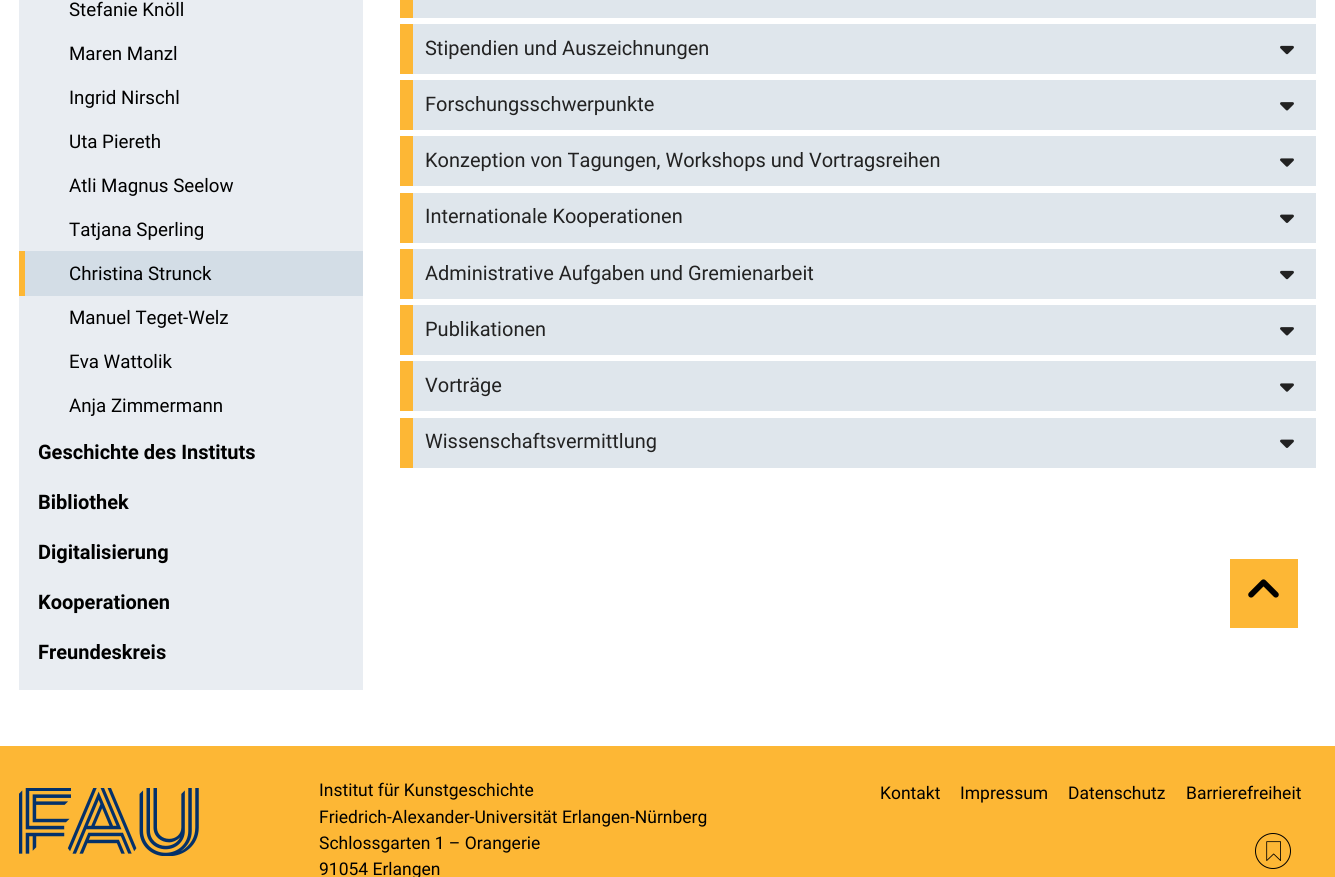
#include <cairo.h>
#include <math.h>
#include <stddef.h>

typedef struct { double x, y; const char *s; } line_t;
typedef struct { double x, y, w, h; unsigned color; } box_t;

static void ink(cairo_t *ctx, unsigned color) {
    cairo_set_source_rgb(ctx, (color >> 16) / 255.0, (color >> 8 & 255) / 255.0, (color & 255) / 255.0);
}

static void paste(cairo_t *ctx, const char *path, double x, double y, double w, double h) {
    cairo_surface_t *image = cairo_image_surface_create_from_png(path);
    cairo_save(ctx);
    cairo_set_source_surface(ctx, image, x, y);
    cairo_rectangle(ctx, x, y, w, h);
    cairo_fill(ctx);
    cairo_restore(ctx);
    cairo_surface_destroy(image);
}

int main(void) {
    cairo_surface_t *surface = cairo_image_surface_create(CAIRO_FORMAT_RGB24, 1335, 877);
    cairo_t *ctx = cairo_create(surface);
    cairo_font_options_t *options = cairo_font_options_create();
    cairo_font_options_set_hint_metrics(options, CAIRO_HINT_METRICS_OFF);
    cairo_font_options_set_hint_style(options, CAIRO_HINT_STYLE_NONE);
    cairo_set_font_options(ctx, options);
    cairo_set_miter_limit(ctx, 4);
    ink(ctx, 0xFFFFFF);
    cairo_paint(ctx);
    ink(ctx, 0xE9EDF2);
    cairo_rectangle(ctx, 19, 0, 344, 690);
    cairo_fill(ctx);
    cairo_select_font_face(ctx, "Roboto", CAIRO_FONT_SLANT_NORMAL, CAIRO_FONT_WEIGHT_NORMAL);
    cairo_set_font_size(ctx, 18.75);
    ink(ctx, 0x000000);
    {
        static const line_t items[] = {
            {69, 16, "Stefanie Knöll"},
            {69, 60, "Maren Manzl"},
            {69, 104, "Ingrid Nirschl"},
            {69, 148, "Uta Piereth"},
            {69, 192, "Atli Magnus Seelow"},
            {69, 236, "Tatjana Sperling"},
        };
        for (size_t i = 0; i < sizeof items / sizeof *items; i++) {
            cairo_move_to(ctx, items[i].x, items[i].y);
            cairo_show_text(ctx, items[i].s);
        }
    }
    ink(ctx, 0xD3DDE6);
    cairo_rectangle(ctx, 25, 251, 338, 45);
    cairo_fill(ctx);
    ink(ctx, 0xFDB735);
    cairo_rectangle(ctx, 19, 251, 6, 45);
    cairo_fill(ctx);
    ink(ctx, 0x000000);
    {
        static const line_t items[] = {
            {69, 280, "Christina Strunck"},
            {69, 324, "Manuel Teget-Welz"},
            {69, 368, "Eva Wattolik"},
            {69, 412, "Anja Zimmermann"},
        };
        for (size_t i = 0; i < sizeof items / sizeof *items; i++) {
            cairo_move_to(ctx, items[i].x, items[i].y);
            cairo_show_text(ctx, items[i].s);
        }
    }
    cairo_select_font_face(ctx, "Roboto", CAIRO_FONT_SLANT_NORMAL, CAIRO_FONT_WEIGHT_BOLD);
    cairo_set_font_size(ctx, 20);
    {
        static const line_t items[] = {
            {38, 459, "Geschichte des Instituts"},
            {38, 509, "Bibliothek"},
            {38, 559, "Digitalisierung"},
            {38, 609, "Kooperationen"},
            {38, 659, "Freundeskreis"},
        };
        for (size_t i = 0; i < sizeof items / sizeof *items; i++) {
            cairo_move_to(ctx, items[i].x, items[i].y);
            cairo_show_text(ctx, items[i].s);
        }
    }
    {
        static const box_t items[] = {
            {413, 0, 903, 18, 0xDFE6EC},
            {400, 0, 13, 18, 0xFDB735},
            {413, 24, 903, 50, 0xDFE6EC},
            {400, 24, 13, 50, 0xFDB735},
        };
        for (size_t i = 0; i < sizeof items / sizeof *items; i++) {
            ink(ctx, items[i].color);
            cairo_rectangle(ctx, items[i].x, items[i].y, items[i].w, items[i].h);
            cairo_fill(ctx);
        }
    }
    cairo_select_font_face(ctx, "Roboto", CAIRO_FONT_SLANT_NORMAL, CAIRO_FONT_WEIGHT_NORMAL);
    ink(ctx, 0x222222);
    cairo_move_to(ctx, 425, 55);
    cairo_show_text(ctx, "Stipendien und Auszeichnungen");
    paste(ctx, "media/1.png", 1280, 45, 14, 10);
    ink(ctx, 0xDFE6EC);
    cairo_rectangle(ctx, 413, 80, 903, 50);
    cairo_fill(ctx);
    ink(ctx, 0xFDB735);
    cairo_rectangle(ctx, 400, 80, 13, 50);
    cairo_fill(ctx);
    ink(ctx, 0x222222);
    cairo_move_to(ctx, 425, 111);
    cairo_show_text(ctx, "Forschungsschwerpunkte");
    paste(ctx, "media/2.png", 1280, 102, 14, 9);
    ink(ctx, 0xDFE6EC);
    cairo_rectangle(ctx, 413, 136, 903, 50);
    cairo_fill(ctx);
    ink(ctx, 0xFDB735);
    cairo_rectangle(ctx, 400, 136, 13, 50);
    cairo_fill(ctx);
    ink(ctx, 0x222222);
    cairo_move_to(ctx, 425, 167);
    cairo_show_text(ctx, "Konzeption von Tagungen, Workshops und Vortragsreihen");
    paste(ctx, "media/3.png", 1280, 158, 14, 9);
    ink(ctx, 0xDFE6EC);
    cairo_rectangle(ctx, 413, 193, 903, 50);
    cairo_fill(ctx);
    ink(ctx, 0xFDB735);
    cairo_rectangle(ctx, 400, 193, 13, 50);
    cairo_fill(ctx);
    ink(ctx, 0x222222);
    cairo_move_to(ctx, 425, 223);
    cairo_show_text(ctx, "Internationale Kooperationen");
    paste(ctx, "media/4.png", 1280, 214, 14, 9);
    ink(ctx, 0xDFE6EC);
    cairo_rectangle(ctx, 413, 249, 903, 50);
    cairo_fill(ctx);
    ink(ctx, 0xFDB735);
    cairo_rectangle(ctx, 400, 249, 13, 50);
    cairo_fill(ctx);
    ink(ctx, 0x222222);
    cairo_move_to(ctx, 425, 280);
    cairo_show_text(ctx, "Administrative Aufgaben und Gremienarbeit");
    paste(ctx, "media/1.png", 1280, 270, 14, 10);
    ink(ctx, 0xDFE6EC);
    cairo_rectangle(ctx, 413, 305, 903, 50);
    cairo_fill(ctx);
    ink(ctx, 0xFDB735);
    cairo_rectangle(ctx, 400, 305, 13, 50);
    cairo_fill(ctx);
    ink(ctx, 0x222222);
    cairo_move_to(ctx, 425, 336);
    cairo_show_text(ctx, "Publikationen");
    paste(ctx, "media/2.png", 1280, 327, 14, 9);
    ink(ctx, 0xDFE6EC);
    cairo_rectangle(ctx, 413, 361, 903, 50);
    cairo_fill(ctx);
    ink(ctx, 0xFDB735);
    cairo_rectangle(ctx, 400, 361, 13, 50);
    cairo_fill(ctx);
    ink(ctx, 0x222222);
    cairo_move_to(ctx, 425, 392);
    cairo_show_text(ctx, "Vorträge");
    paste(ctx, "media/3.png", 1280, 383, 14, 9);
    ink(ctx, 0xDFE6EC);
    cairo_rectangle(ctx, 413, 418, 903, 50);
    cairo_fill(ctx);
    ink(ctx, 0xFDB735);
    cairo_rectangle(ctx, 400, 418, 13, 50);
    cairo_fill(ctx);
    ink(ctx, 0x222222);
    cairo_move_to(ctx, 425, 448);
    cairo_show_text(ctx, "Wissenschaftsvermittlung");
    paste(ctx, "media/4.png", 1280, 439, 14, 9);
    ink(ctx, 0xFDB735);
    cairo_rectangle(ctx, 0, 746, 1335, 131);
    cairo_fill(ctx);
    cairo_rectangle(ctx, 1230, 559, 68, 69);
    cairo_fill(ctx);
    paste(ctx, "media/5.png", 1248, 579, 31, 19);
    paste(ctx, "media/6.png", 19, 788, 180, 68);
    cairo_set_font_size(ctx, 17.5);
    ink(ctx, 0x000000);
    {
        static const line_t items[] = {
            {319, 796, "Institut für Kunstgeschichte"},
            {319, 823, "Friedrich-Alexander-Universität Erlangen-Nürnberg"},
            {319, 849, "Schlossgarten 1 – Orangerie"},
            {319, 875, "91054 Erlangen"},
            {880, 799, "Kontakt"},
            {960, 799, "Impressum"},
            {1068, 799, "Datenschutz"},
            {1186, 799, "Barrierefreiheit"},
        };
        for (size_t i = 0; i < sizeof items / sizeof *items; i++) {
            cairo_move_to(ctx, items[i].x, items[i].y);
            cairo_show_text(ctx, items[i].s);
        }
    }
    cairo_new_path(ctx);
    cairo_arc(ctx, 1273, 851, 17.5, 0, 2 * M_PI);
    cairo_set_line_width(ctx, 1);
    cairo_stroke(ctx);
    paste(ctx, "media/7.png", 1266, 841, 15, 20);
    cairo_surface_write_to_png(surface, "image.png");
    cairo_font_options_destroy(options);
    cairo_destroy(ctx);
    cairo_surface_destroy(surface);
    return 0;
}
